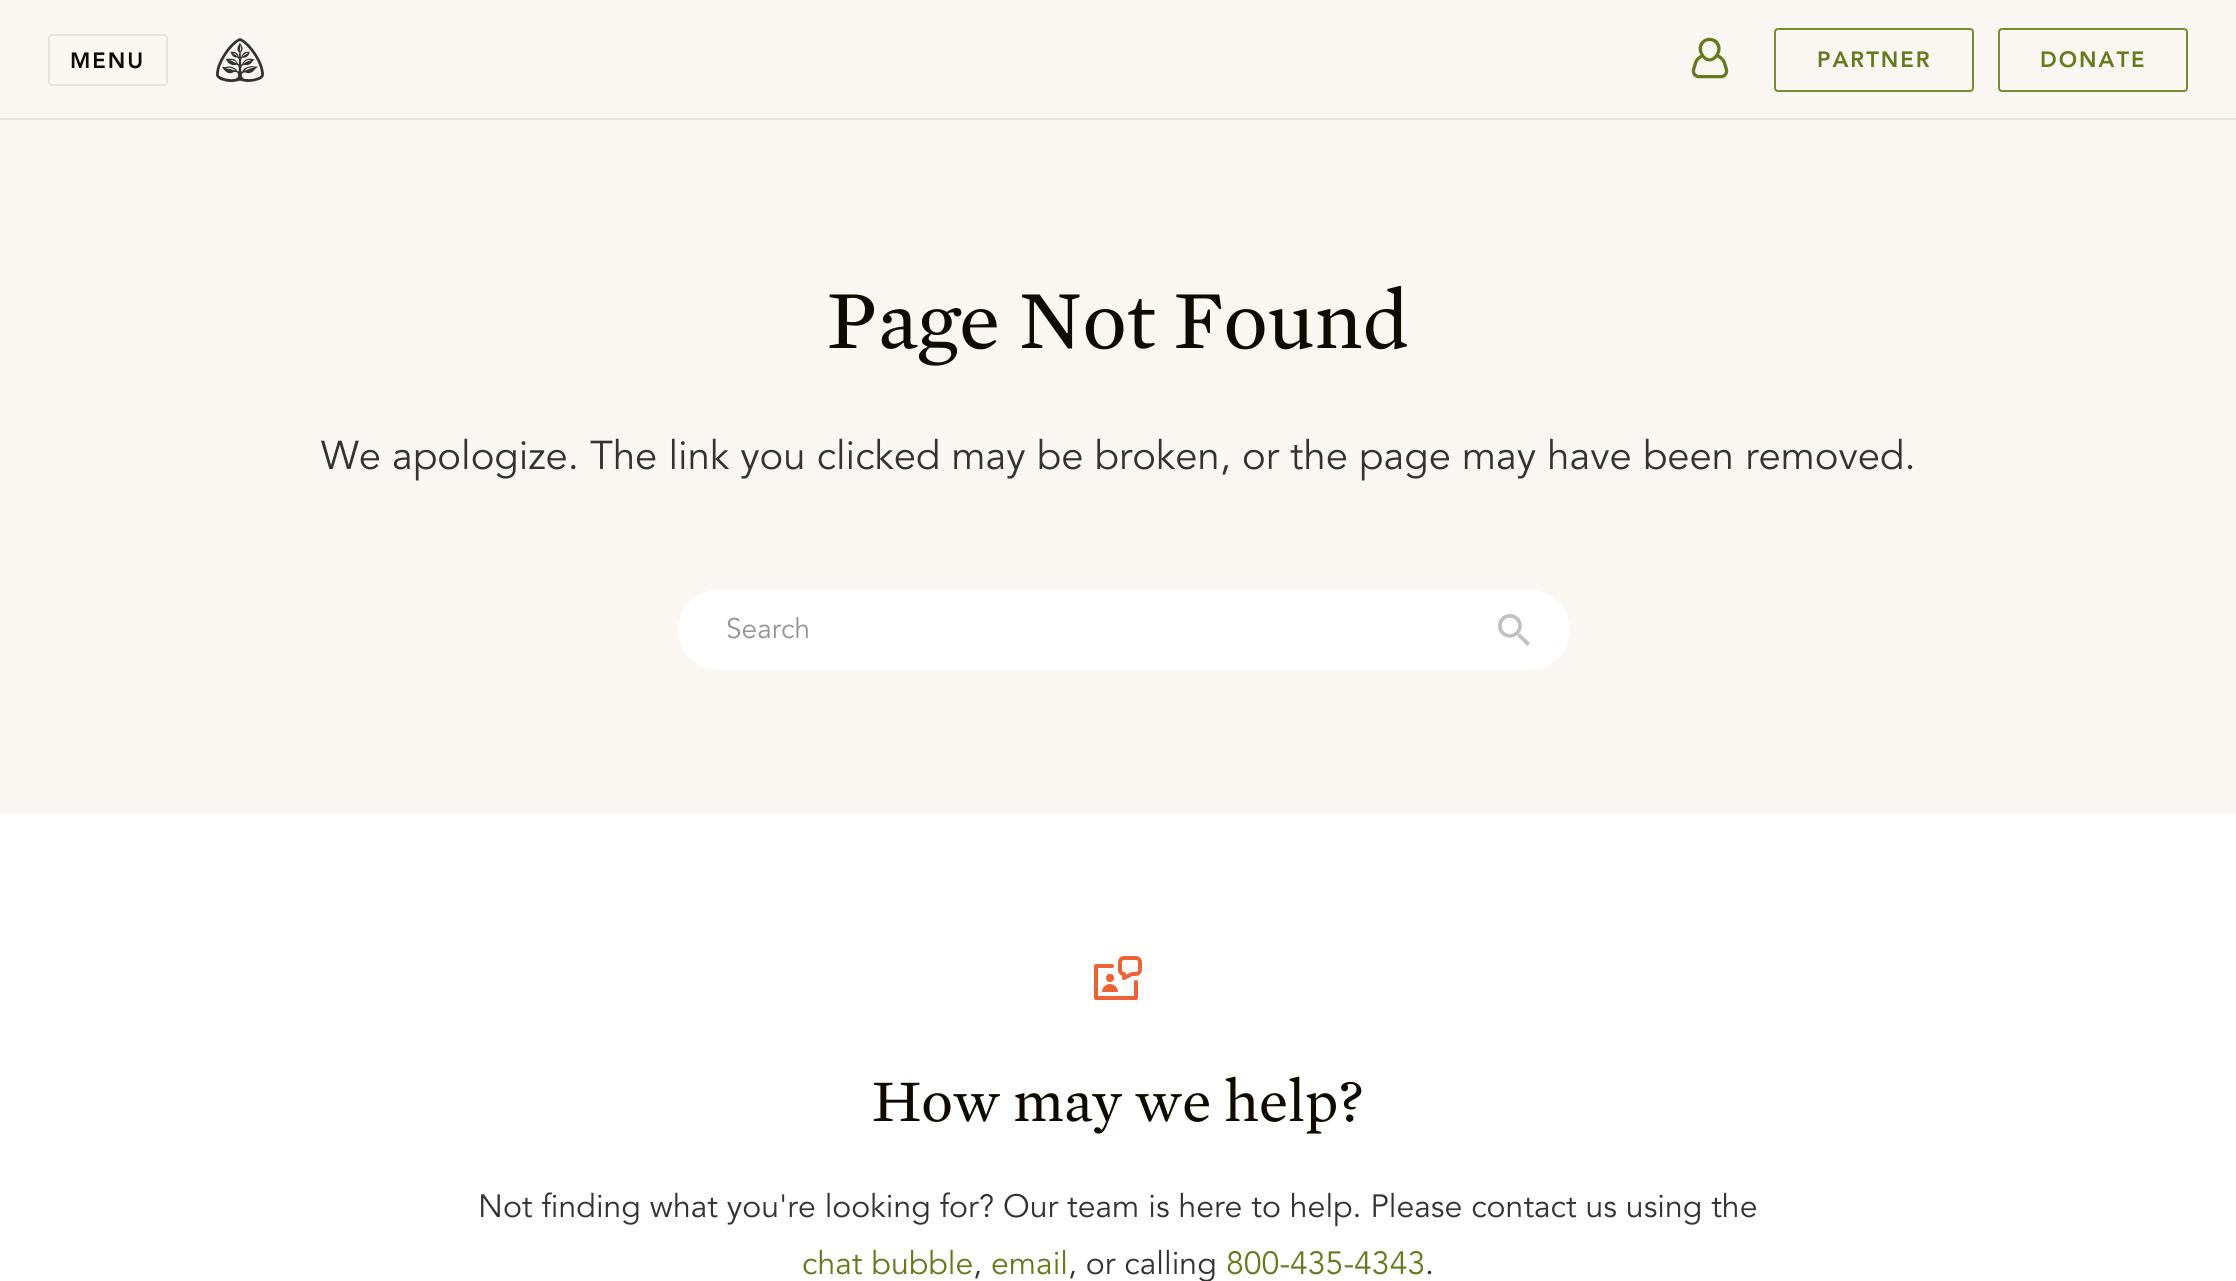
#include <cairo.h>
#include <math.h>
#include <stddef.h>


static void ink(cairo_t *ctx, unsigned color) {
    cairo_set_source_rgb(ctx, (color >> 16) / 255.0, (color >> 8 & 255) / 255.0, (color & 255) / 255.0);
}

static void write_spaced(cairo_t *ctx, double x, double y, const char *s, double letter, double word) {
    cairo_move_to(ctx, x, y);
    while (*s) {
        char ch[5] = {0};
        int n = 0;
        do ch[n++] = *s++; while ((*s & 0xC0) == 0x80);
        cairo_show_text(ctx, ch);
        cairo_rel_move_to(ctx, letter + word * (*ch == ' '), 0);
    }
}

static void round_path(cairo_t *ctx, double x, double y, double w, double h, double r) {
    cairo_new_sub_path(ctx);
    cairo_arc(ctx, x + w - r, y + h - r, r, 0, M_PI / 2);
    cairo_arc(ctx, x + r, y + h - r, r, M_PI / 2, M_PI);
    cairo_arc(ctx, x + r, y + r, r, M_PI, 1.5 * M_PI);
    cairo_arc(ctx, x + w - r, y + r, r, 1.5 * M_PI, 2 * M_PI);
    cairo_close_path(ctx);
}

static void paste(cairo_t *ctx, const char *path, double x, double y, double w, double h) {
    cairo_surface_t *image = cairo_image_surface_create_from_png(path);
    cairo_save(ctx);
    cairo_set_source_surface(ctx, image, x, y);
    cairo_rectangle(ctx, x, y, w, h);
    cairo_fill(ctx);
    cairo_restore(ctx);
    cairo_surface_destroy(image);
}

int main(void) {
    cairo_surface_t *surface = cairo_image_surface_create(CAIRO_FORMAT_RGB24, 2236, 1281);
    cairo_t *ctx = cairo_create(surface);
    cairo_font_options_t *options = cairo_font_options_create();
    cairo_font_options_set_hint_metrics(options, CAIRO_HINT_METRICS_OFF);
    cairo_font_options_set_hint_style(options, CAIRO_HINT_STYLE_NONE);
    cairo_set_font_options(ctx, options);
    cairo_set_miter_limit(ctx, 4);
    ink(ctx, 0xFFFFFF);
    cairo_paint(ctx);
    ink(ctx, 0xFAF7F2);
    cairo_rectangle(ctx, 0, 0, 2236, 118);
    cairo_fill(ctx);
    ink(ctx, 0xE7E4DF);
    cairo_rectangle(ctx, 0, 118, 2236, 2);
    cairo_fill(ctx);
    round_path(ctx, 49, 35, 118, 50, 3);
    cairo_stroke(ctx);
    cairo_select_font_face(ctx, "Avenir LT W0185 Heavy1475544 Black", CAIRO_FONT_SLANT_NORMAL, CAIRO_FONT_WEIGHT_NORMAL);
    cairo_set_font_size(ctx, 22);
    ink(ctx, 0x100B00);
    write_spaced(ctx, 70, 68, "MENU", 2, 0);
    paste(ctx, "media/1.png", 216, 38, 48, 44);
    paste(ctx, "media/2.png", 1691, 37, 38, 42);
    round_path(ctx, 1775, 29, 198, 62, 3);
    ink(ctx, 0x768D2F);
    cairo_stroke(ctx);
    ink(ctx, 0x647A1C);
    write_spaced(ctx, 1817, 67, "PARTNER", 2, 0);
    round_path(ctx, 1999, 29, 188, 62, 3);
    ink(ctx, 0x768D2F);
    cairo_stroke(ctx);
    ink(ctx, 0x647A1C);
    write_spaced(ctx, 2040, 67, "DONATE", 2, 0);
    ink(ctx, 0xFAF7F2);
    cairo_rectangle(ctx, 0, 120, 2236, 694);
    cairo_fill(ctx);
    cairo_select_font_face(ctx, "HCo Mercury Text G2", CAIRO_FONT_SLANT_NORMAL, CAIRO_FONT_WEIGHT_NORMAL);
    cairo_set_font_size(ctx, 84);
    ink(ctx, 0x100B00);
    cairo_move_to(ctx, 827, 348);
    cairo_show_text(ctx, "Page Not Found");
    cairo_select_font_face(ctx, "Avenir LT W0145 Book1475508", CAIRO_FONT_SLANT_NORMAL, CAIRO_FONT_WEIGHT_NORMAL);
    cairo_set_font_size(ctx, 40);
    ink(ctx, 0x333333);
    cairo_move_to(ctx, 321, 469);
    cairo_show_text(ctx, "We apologize. The link you clicked may be broken, or the page may have been removed.");
    ink(ctx, 0xFFFFFF);
    round_path(ctx, 678, 590, 892, 80, 40);
    cairo_fill(ctx);
    cairo_set_font_size(ctx, 28);
    ink(ctx, 0x949494);
    cairo_move_to(ctx, 726, 638);
    cairo_show_text(ctx, "Search");
    paste(ctx, "media/3.png", 1498, 614, 32, 32);
    paste(ctx, "media/4.png", 1094, 956, 48, 44);
    cairo_select_font_face(ctx, "HCo Mercury Text G2", CAIRO_FONT_SLANT_NORMAL, CAIRO_FONT_WEIGHT_NORMAL);
    cairo_set_font_size(ctx, 60);
    ink(ctx, 0x100B00);
    cairo_move_to(ctx, 872, 1121);
    cairo_show_text(ctx, "How may we help?");
    cairo_select_font_face(ctx, "Avenir LT W0145 Book1475508", CAIRO_FONT_SLANT_NORMAL, CAIRO_FONT_WEIGHT_NORMAL);
    cairo_set_font_size(ctx, 32);
    ink(ctx, 0x333333);
    cairo_move_to(ctx, 478, 1217);
    cairo_show_text(ctx, "Not finding what you're looking for? Our team is here to help. Please contact us using the");
    ink(ctx, 0x647A1C);
    cairo_move_to(ctx, 802, 1274);
    cairo_show_text(ctx, "chat bubble");
    ink(ctx, 0x333333);
    cairo_move_to(ctx, 973, 1274);
    cairo_show_text(ctx, ",");
    ink(ctx, 0x647A1C);
    cairo_move_to(ctx, 991, 1274);
    cairo_show_text(ctx, "email");
    ink(ctx, 0x333333);
    cairo_move_to(ctx, 1068, 1274);
    cairo_show_text(ctx, ", or calling");
    ink(ctx, 0x647A1C);
    cairo_move_to(ctx, 1226, 1274);
    cairo_show_text(ctx, "800-435-4343");
    ink(ctx, 0x333333);
    cairo_move_to(ctx, 1425, 1274);
    cairo_show_text(ctx, ".");
    cairo_surface_write_to_png(surface, "image.png");
    cairo_font_options_destroy(options);
    cairo_destroy(ctx);
    cairo_surface_destroy(surface);
    return 0;
}
